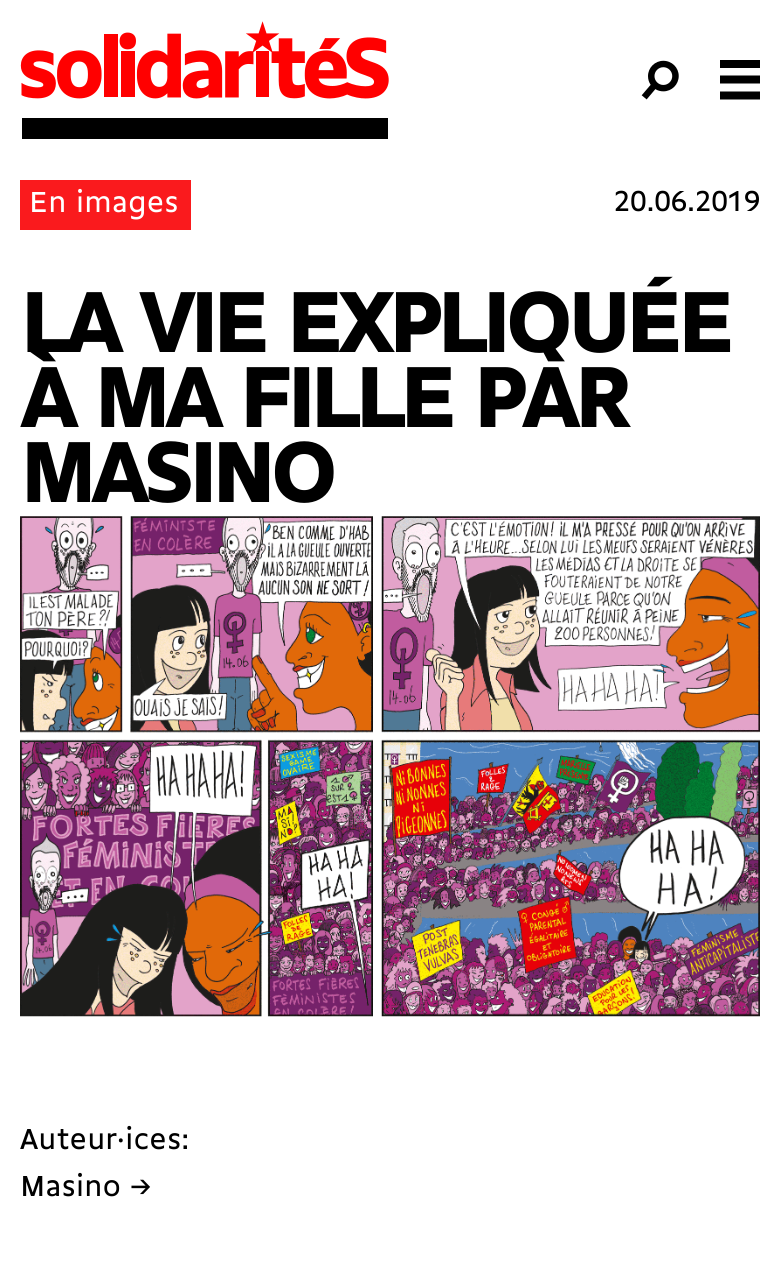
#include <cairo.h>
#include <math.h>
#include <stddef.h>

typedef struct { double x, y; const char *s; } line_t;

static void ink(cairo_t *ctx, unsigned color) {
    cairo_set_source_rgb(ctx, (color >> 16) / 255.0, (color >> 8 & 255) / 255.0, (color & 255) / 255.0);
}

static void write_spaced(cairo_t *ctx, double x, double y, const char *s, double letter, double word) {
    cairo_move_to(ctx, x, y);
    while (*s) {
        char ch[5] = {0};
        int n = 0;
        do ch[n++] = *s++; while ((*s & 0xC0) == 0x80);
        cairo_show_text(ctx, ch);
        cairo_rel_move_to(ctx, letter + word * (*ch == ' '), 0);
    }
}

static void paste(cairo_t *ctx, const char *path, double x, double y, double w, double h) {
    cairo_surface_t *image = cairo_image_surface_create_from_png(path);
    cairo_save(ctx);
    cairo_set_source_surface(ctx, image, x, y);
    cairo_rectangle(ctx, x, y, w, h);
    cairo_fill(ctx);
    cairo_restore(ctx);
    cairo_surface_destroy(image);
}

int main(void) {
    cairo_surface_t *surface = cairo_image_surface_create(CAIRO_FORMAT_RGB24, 779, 1275);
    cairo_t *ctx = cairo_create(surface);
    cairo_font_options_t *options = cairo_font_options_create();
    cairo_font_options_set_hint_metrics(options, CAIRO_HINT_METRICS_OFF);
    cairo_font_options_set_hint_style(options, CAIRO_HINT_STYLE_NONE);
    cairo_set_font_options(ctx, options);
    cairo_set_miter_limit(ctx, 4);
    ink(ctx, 0xFFFFFF);
    cairo_paint(ctx);
    paste(ctx, "media/1.png", 20, 21, 369, 118);
    paste(ctx, "media/2.png", 641, 60, 38, 40);
    ink(ctx, 0x000000);
    cairo_new_path(ctx);
    cairo_move_to(ctx, 720, 91.5);
    cairo_line_to(ctx, 760, 91.5);
    cairo_line_to(ctx, 760, 99.5);
    cairo_line_to(ctx, 720, 99.5);
    cairo_close_path(ctx);
    cairo_move_to(ctx, 720, 75.5);
    cairo_line_to(ctx, 720, 83.5);
    cairo_line_to(ctx, 760, 83.5);
    cairo_line_to(ctx, 760, 75.5);
    cairo_close_path(ctx);
    cairo_move_to(ctx, 720, 68);
    cairo_line_to(ctx, 760, 68);
    cairo_line_to(ctx, 760, 60);
    cairo_line_to(ctx, 720, 60);
    cairo_close_path(ctx);
    cairo_fill(ctx);
    ink(ctx, 0xFA1A1D);
    cairo_rectangle(ctx, 20, 180, 171, 50);
    cairo_fill(ctx);
    cairo_select_font_face(ctx, "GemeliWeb", CAIRO_FONT_SLANT_NORMAL, CAIRO_FONT_WEIGHT_NORMAL);
    cairo_set_font_size(ctx, 31.25);
    ink(ctx, 0xFFFFFF);
    cairo_move_to(ctx, 29, 212);
    cairo_show_text(ctx, "En images");
    ink(ctx, 0x000000);
    cairo_move_to(ctx, 614, 211);
    cairo_show_text(ctx, "20.06.2019");
    cairo_select_font_face(ctx, "GemeliWeb Black", CAIRO_FONT_SLANT_NORMAL, CAIRO_FONT_WEIGHT_NORMAL);
    cairo_set_font_size(ctx, 93.5);
    {
        static const line_t items[] = {
            {20, 352, "LA VIE EXPLIQUÉE"},
            {20, 427, "À MA FILLE PAR"},
            {20, 502, "MASINO"},
        };
        for (size_t i = 0; i < sizeof items / sizeof *items; i++) {
            write_spaced(ctx, items[i].x, items[i].y, items[i].s, -6.5, 0);
        }
    }
    paste(ctx, "media/3.png", 20, 516, 740, 501);
    cairo_select_font_face(ctx, "GemeliWeb", CAIRO_FONT_SLANT_NORMAL, CAIRO_FONT_WEIGHT_NORMAL);
    cairo_set_font_size(ctx, 31.25);
    cairo_move_to(ctx, 20, 1149);
    cairo_show_text(ctx, "Auteur·ices:");
    cairo_move_to(ctx, 20, 1196);
    cairo_show_text(ctx, "Masino →");
    cairo_surface_write_to_png(surface, "image.png");
    cairo_font_options_destroy(options);
    cairo_destroy(ctx);
    cairo_surface_destroy(surface);
    return 0;
}
